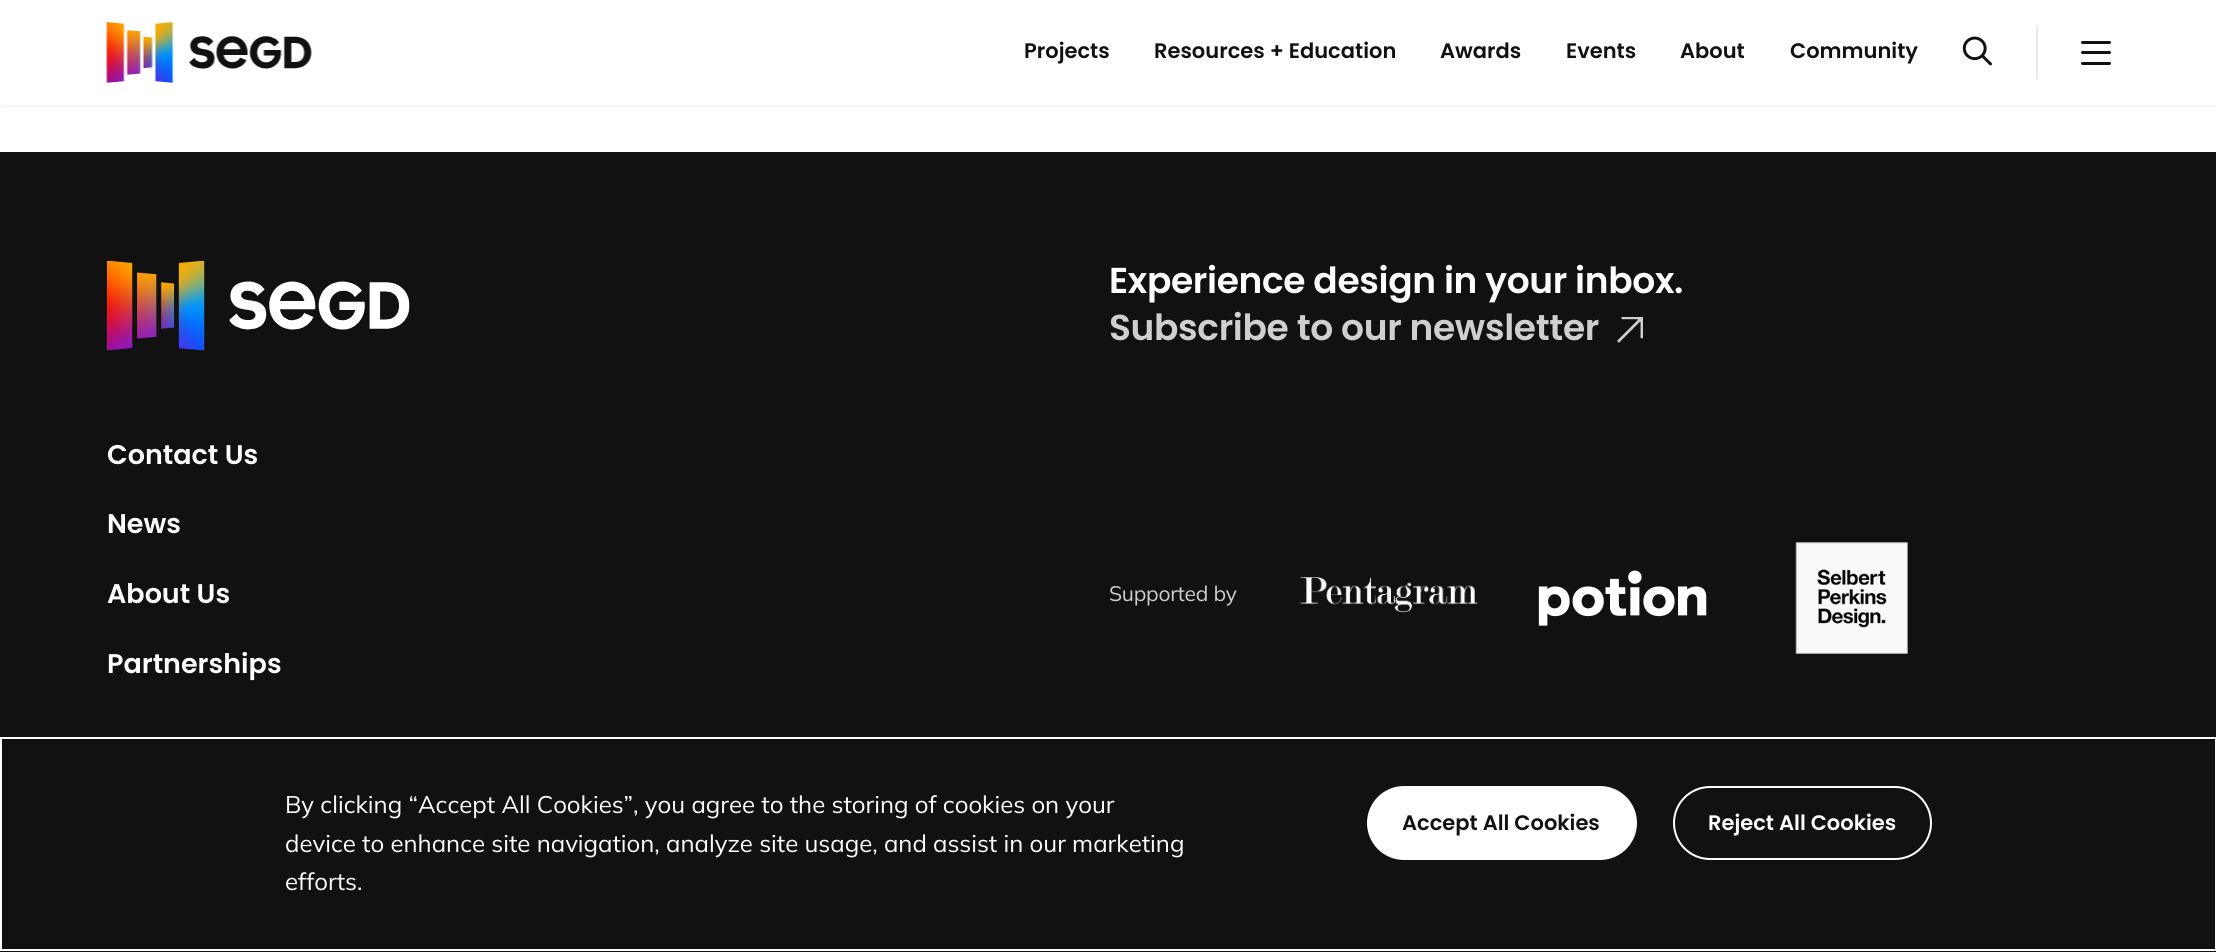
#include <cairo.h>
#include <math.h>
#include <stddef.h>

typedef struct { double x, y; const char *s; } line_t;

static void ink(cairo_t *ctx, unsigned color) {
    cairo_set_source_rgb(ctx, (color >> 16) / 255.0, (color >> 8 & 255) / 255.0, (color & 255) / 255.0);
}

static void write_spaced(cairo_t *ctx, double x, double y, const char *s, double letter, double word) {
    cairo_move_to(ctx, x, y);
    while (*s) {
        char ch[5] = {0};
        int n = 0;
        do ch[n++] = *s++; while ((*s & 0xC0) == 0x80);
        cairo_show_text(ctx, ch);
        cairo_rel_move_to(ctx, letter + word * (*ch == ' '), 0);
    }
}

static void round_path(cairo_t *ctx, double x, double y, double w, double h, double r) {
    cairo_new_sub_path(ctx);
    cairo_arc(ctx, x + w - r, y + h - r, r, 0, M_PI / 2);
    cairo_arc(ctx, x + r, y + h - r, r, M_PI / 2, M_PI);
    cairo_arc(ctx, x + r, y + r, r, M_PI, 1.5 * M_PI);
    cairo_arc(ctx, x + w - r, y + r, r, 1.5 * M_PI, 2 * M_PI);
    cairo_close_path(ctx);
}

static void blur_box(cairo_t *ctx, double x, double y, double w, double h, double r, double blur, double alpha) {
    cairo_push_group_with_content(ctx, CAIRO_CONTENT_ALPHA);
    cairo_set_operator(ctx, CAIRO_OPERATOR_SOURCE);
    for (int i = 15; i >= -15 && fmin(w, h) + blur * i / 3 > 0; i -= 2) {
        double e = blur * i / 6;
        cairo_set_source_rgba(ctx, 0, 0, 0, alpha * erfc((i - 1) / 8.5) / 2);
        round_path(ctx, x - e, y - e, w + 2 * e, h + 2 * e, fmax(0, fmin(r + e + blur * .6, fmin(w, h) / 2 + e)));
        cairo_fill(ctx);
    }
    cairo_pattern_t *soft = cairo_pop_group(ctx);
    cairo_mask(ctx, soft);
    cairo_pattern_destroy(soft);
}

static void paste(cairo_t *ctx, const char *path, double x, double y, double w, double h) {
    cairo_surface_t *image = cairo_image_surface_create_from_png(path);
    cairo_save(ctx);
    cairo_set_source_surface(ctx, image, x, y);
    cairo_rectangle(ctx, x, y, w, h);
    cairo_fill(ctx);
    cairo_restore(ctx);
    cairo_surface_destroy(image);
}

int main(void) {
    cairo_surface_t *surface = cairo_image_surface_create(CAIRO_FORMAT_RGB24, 2216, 952);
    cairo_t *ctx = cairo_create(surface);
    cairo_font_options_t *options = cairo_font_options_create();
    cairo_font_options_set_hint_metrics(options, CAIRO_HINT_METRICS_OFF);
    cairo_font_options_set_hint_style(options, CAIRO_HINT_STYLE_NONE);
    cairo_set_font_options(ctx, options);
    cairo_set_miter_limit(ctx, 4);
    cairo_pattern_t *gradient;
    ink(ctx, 0x111111);
    cairo_paint(ctx);
    ink(ctx, 0xFFFFFF);
    cairo_rectangle(ctx, 0, 0, 2216, 152);
    cairo_fill(ctx);
    cairo_save(ctx);
    cairo_rectangle(ctx, 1, 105, 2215, 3);
    cairo_clip(ctx);
    ink(ctx, 0x000000);
    blur_box(ctx, 2, 0, 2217, 105, 0, 4, 0.1);
    cairo_restore(ctx);
    paste(ctx, "media/1.png", 106, 22, 206, 61);
    cairo_select_font_face(ctx, "Poppins SemiBold", CAIRO_FONT_SLANT_NORMAL, CAIRO_FONT_WEIGHT_NORMAL);
    cairo_set_font_size(ctx, 21);
    ink(ctx, 0x111111);
    {
        static const line_t items[] = {
            {1024, 58, "Projects"},
            {1154, 58, "Resources + Education"},
            {1440, 58, "Awards"},
            {1566, 58, "Events"},
            {1680, 58, "About"},
            {1790, 58, "Community"},
        };
        for (size_t i = 0; i < sizeof items / sizeof *items; i++) {
            cairo_move_to(ctx, items[i].x, items[i].y);
            cairo_show_text(ctx, items[i].s);
        }
    }
    paste(ctx, "media/2.png", 1962, 36, 30, 30);
    gradient = cairo_pattern_create_linear(2036, 24, 2036, 81);
    cairo_pattern_add_color_stop_rgba(gradient, 0, 1, 1, 1, 1);
    cairo_pattern_add_color_stop_rgba(gradient, 0.03, 0.957, 0.957, 0.957, 1);
    cairo_pattern_add_color_stop_rgba(gradient, 0.1, 0.91, 0.91, 0.91, 1);
    cairo_pattern_add_color_stop_rgba(gradient, 0.9, 0.91, 0.91, 0.91, 1);
    cairo_pattern_add_color_stop_rgba(gradient, 0.97, 0.957, 0.957, 0.957, 1);
    cairo_pattern_add_color_stop_rgba(gradient, 1, 1, 1, 1, 1);
    cairo_set_source(ctx, gradient);
    cairo_pattern_destroy(gradient);
    cairo_rectangle(ctx, 2036, 24, 2, 57);
    cairo_fill(ctx);
    ink(ctx, 0x111111);
    round_path(ctx, 2081, 51, 30, 3, 1.5);
    cairo_fill(ctx);
    round_path(ctx, 2081, 41, 30, 3, 1.5);
    cairo_fill(ctx);
    round_path(ctx, 2081, 62, 30, 3, 1.5);
    cairo_fill(ctx);
    paste(ctx, "media/3.png", 106, 260, 304, 91);
    cairo_set_font_size(ctx, 36);
    ink(ctx, 0xFFFFFF);
    write_spaced(ctx, 1109, 293, "Experience design in your inbox.", -0.35, 0);
    ink(ctx, 0xCFCFCF);
    write_spaced(ctx, 1109, 340, "Subscribe to our newsletter", -0.35, 0);
    paste(ctx, "media/4.png", 1617, 317, 26, 26);
    cairo_set_font_size(ctx, 27);
    ink(ctx, 0xFFFFFF);
    {
        static const line_t items[] = {
            {107, 464, "Contact Us"},
            {107, 533, "News"},
            {107, 603, "About Us"},
            {107, 673, "Partnerships"},
        };
        for (size_t i = 0; i < sizeof items / sizeof *items; i++) {
            cairo_move_to(ctx, items[i].x, items[i].y);
            cairo_show_text(ctx, items[i].s);
        }
    }
    cairo_select_font_face(ctx, "Mulish", CAIRO_FONT_SLANT_NORMAL, CAIRO_FONT_WEIGHT_NORMAL);
    cairo_set_font_size(ctx, 21);
    ink(ctx, 0xCFCFCF);
    write_spaced(ctx, 1109, 601, "Supported by", -0.25, 0);
    paste(ctx, "media/5.png", 1300, 577, 178, 36);
    paste(ctx, "media/6.png", 1538, 570, 169, 56);
    paste(ctx, "media/7.png", 1795, 542, 113, 112);
    cairo_rectangle(ctx, 1, 738, 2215, 212);
    ink(ctx, 0xFFFFFF);
    cairo_stroke(ctx);
    cairo_set_font_size(ctx, 24);
    {
        static const line_t items[] = {
            {285, 813, "By clicking “Accept All Cookies”, you agree to the storing of cookies on your"},
            {285, 852, "device to enhance site navigation, analyze site usage, and assist in our marketing"},
            {285, 890, "efforts."},
        };
        for (size_t i = 0; i < sizeof items / sizeof *items; i++) {
            cairo_move_to(ctx, items[i].x, items[i].y);
            cairo_show_text(ctx, items[i].s);
        }
    }
    round_path(ctx, 1367, 786, 270, 74, 37);
    cairo_fill(ctx);
    cairo_select_font_face(ctx, "Poppins SemiBold", CAIRO_FONT_SLANT_NORMAL, CAIRO_FONT_WEIGHT_NORMAL);
    cairo_set_font_size(ctx, 21);
    ink(ctx, 0x111111);
    cairo_move_to(ctx, 1402, 830);
    cairo_show_text(ctx, "Accept All Cookies");
    round_path(ctx, 1674, 787, 257, 72, 36);
    ink(ctx, 0xFFFFFF);
    cairo_stroke(ctx);
    cairo_move_to(ctx, 1708, 830);
    cairo_show_text(ctx, "Reject All Cookies");
    cairo_surface_write_to_png(surface, "image.png");
    cairo_font_options_destroy(options);
    cairo_destroy(ctx);
    cairo_surface_destroy(surface);
    return 0;
}
